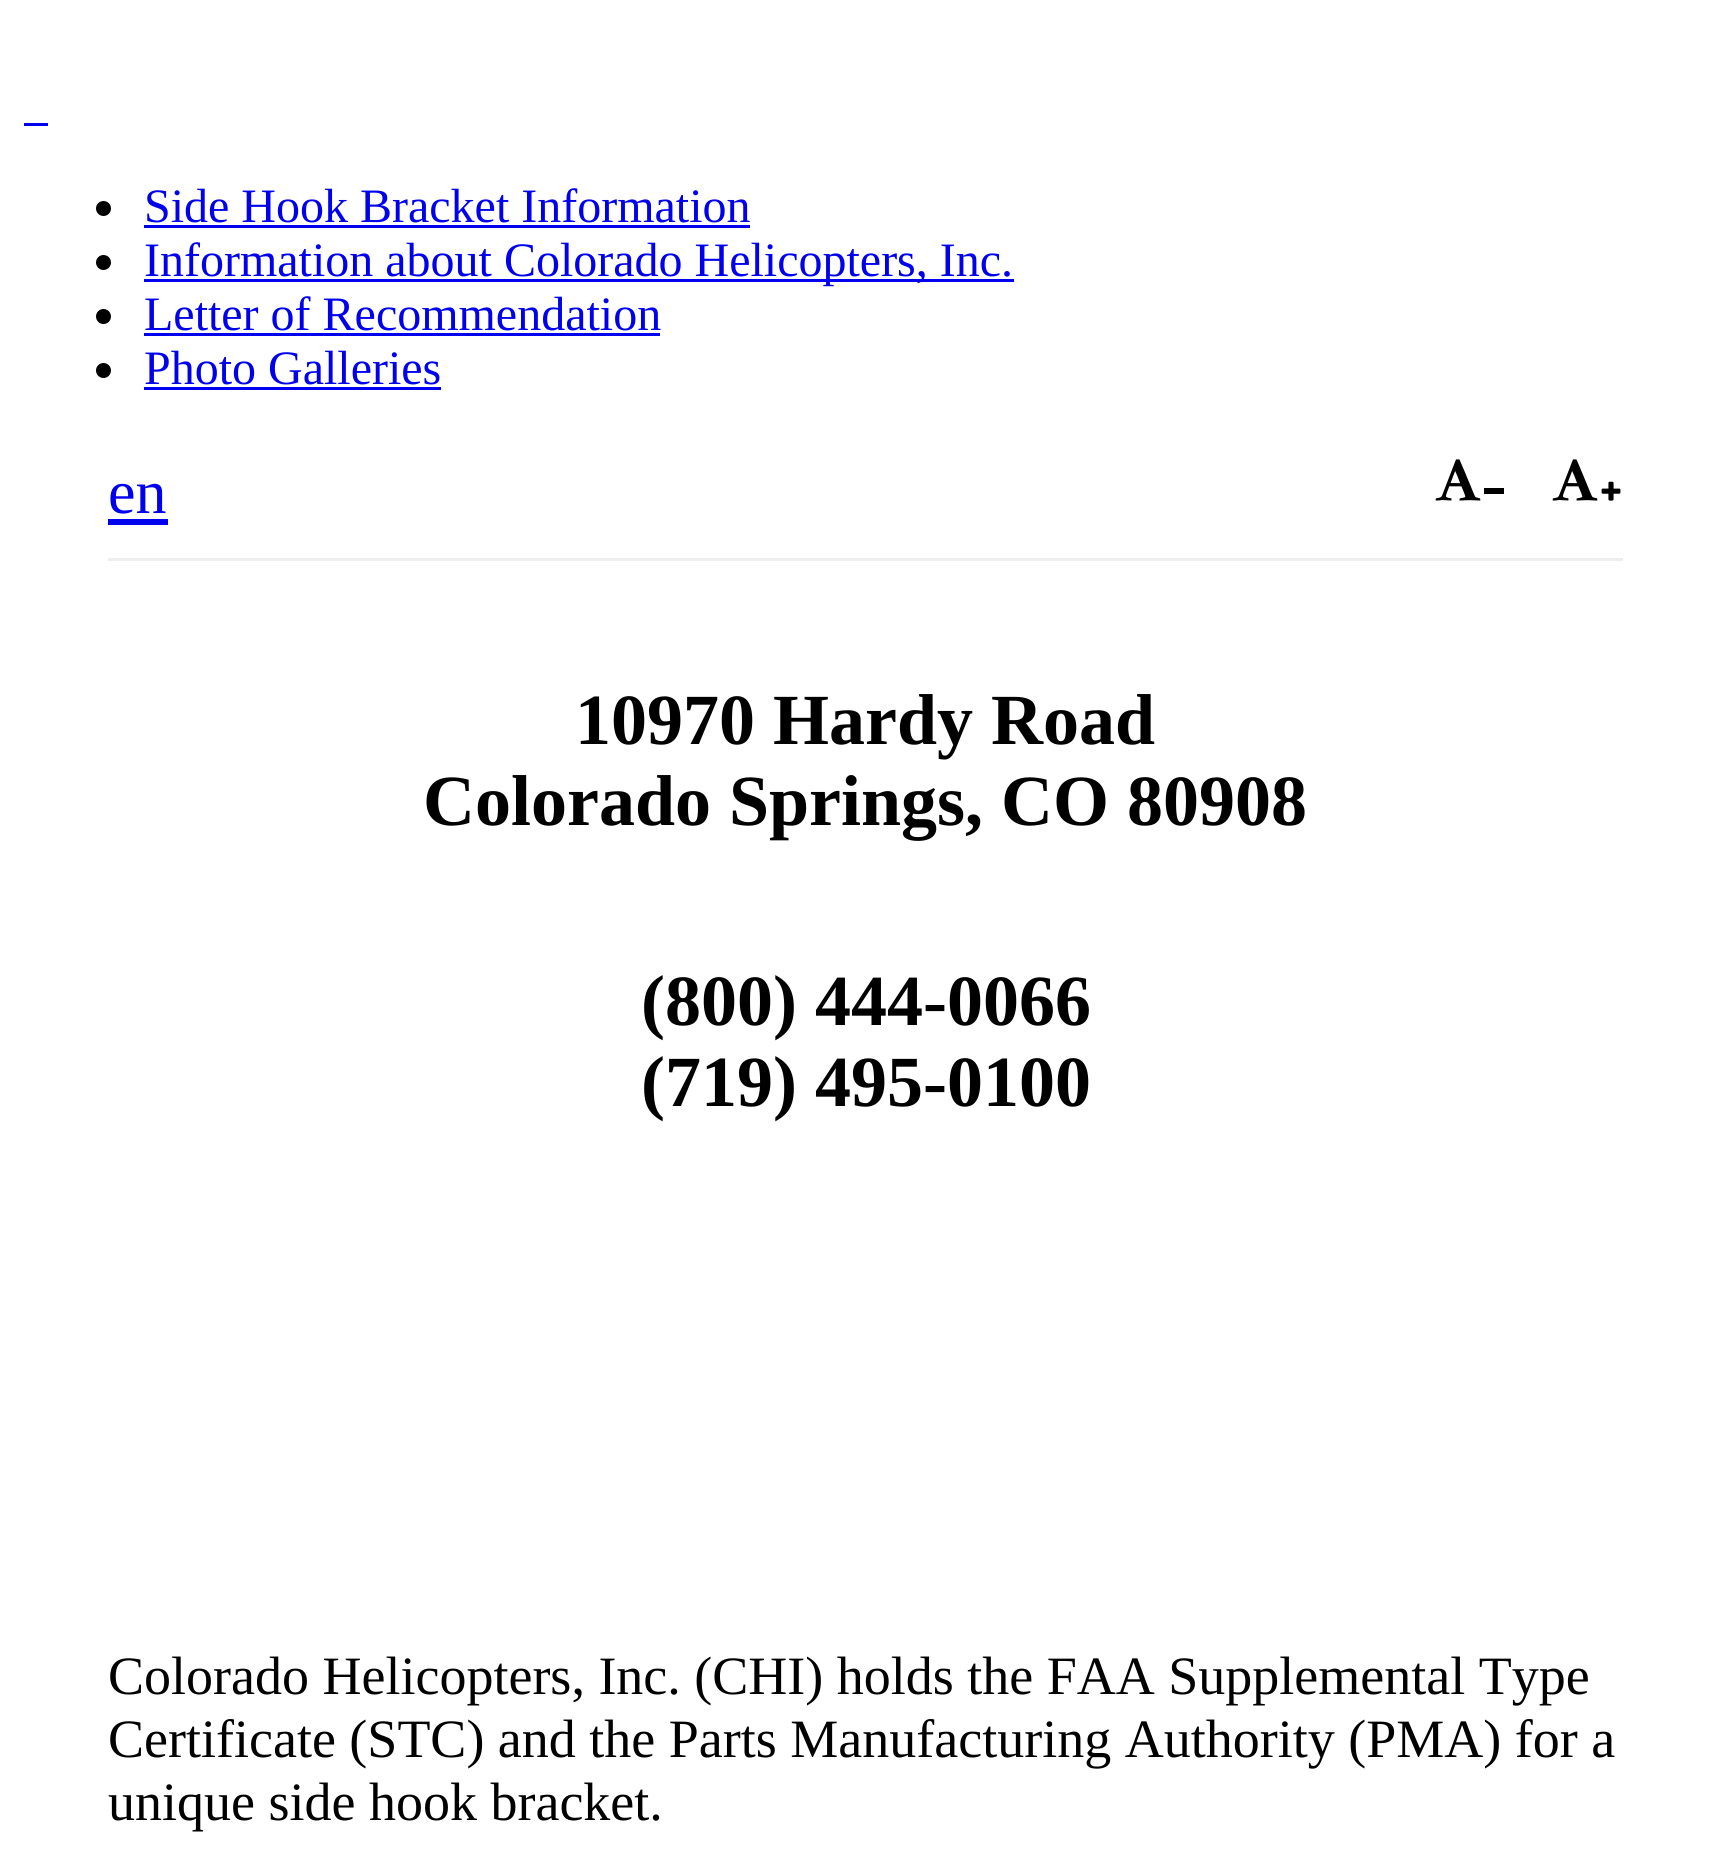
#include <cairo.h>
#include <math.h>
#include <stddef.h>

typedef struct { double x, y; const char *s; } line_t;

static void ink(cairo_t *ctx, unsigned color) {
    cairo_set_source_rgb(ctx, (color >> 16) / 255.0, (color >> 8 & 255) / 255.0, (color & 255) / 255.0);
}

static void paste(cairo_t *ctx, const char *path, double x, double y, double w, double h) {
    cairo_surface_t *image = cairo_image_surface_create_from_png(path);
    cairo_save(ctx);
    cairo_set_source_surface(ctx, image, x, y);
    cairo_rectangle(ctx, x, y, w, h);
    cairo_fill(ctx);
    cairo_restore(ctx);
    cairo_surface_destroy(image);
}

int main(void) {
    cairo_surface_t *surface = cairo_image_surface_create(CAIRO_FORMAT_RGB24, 1731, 1856);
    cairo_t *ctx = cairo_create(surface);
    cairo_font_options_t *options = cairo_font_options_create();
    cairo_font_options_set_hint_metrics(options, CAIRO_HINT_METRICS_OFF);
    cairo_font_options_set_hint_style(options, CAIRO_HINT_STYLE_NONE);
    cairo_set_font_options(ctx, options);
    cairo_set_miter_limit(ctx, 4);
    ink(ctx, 0xFFFFFF);
    cairo_paint(ctx);
    ink(ctx, 0x0000EE);
    cairo_rectangle(ctx, 24, 123, 24, 3);
    cairo_fill(ctx);
    ink(ctx, 0x000000);
    cairo_arc(ctx, 103.5, 208.5, 7.5, 0, 2 * M_PI);
    cairo_fill(ctx);
    cairo_select_font_face(ctx, "Liberation Serif", CAIRO_FONT_SLANT_NORMAL, CAIRO_FONT_WEIGHT_NORMAL);
    cairo_set_font_size(ctx, 48);
    ink(ctx, 0x0000EE);
    cairo_move_to(ctx, 144, 222);
    cairo_show_text(ctx, "Side Hook Bracket Information");
    cairo_rectangle(ctx, 144, 225, 606, 3);
    cairo_fill(ctx);
    ink(ctx, 0x000000);
    cairo_arc(ctx, 103.5, 262.5, 7.5, 0, 2 * M_PI);
    cairo_fill(ctx);
    ink(ctx, 0x0000EE);
    cairo_rectangle(ctx, 144, 279, 870, 3);
    cairo_fill(ctx);
    cairo_move_to(ctx, 144, 276);
    cairo_show_text(ctx, "Information about Colorado Helicopters, Inc.");
    ink(ctx, 0x000000);
    cairo_new_path(ctx);
    cairo_arc(ctx, 103.5, 316.5, 7.5, 0, 2 * M_PI);
    cairo_fill(ctx);
    ink(ctx, 0x0000EE);
    cairo_move_to(ctx, 144, 330);
    cairo_show_text(ctx, "Letter of Recommendation");
    cairo_rectangle(ctx, 144, 333, 516, 3);
    cairo_fill(ctx);
    ink(ctx, 0x000000);
    cairo_arc(ctx, 103.5, 370.5, 7.5, 0, 2 * M_PI);
    cairo_fill(ctx);
    ink(ctx, 0x0000EE);
    cairo_move_to(ctx, 144, 384);
    cairo_show_text(ctx, "Photo Galleries");
    cairo_rectangle(ctx, 144, 387, 297, 3);
    cairo_fill(ctx);
    ink(ctx, 0xEEEEEE);
    cairo_rectangle(ctx, 108, 558, 1515, 3);
    cairo_fill(ctx);
    cairo_set_font_size(ctx, 62);
    ink(ctx, 0x0000EE);
    cairo_move_to(ctx, 108, 513);
    cairo_show_text(ctx, "en");
    cairo_rectangle(ctx, 108, 519, 60, 6);
    cairo_fill(ctx);
    paste(ctx, "media/1.png", 1435, 459, 46, 42);
    ink(ctx, 0x000000);
    cairo_rectangle(ctx, 1484, 488, 20, 6);
    cairo_fill(ctx);
    paste(ctx, "media/1.png", 1552, 459, 46, 42);
    paste(ctx, "media/2.png", 1601, 481, 20, 20);
    cairo_select_font_face(ctx, "Liberation Serif", CAIRO_FONT_SLANT_NORMAL, CAIRO_FONT_WEIGHT_BOLD);
    cairo_set_font_size(ctx, 72);
    {
        static const line_t items[] = {
            {575, 744, "10970 Hardy Road"},
            {423, 825, "Colorado Springs, CO 80908"},
            {641, 1025, "(800) 444-0066"},
            {641, 1106, "(719) 495-0100"},
        };
        for (size_t i = 0; i < sizeof items / sizeof *items; i++) {
            cairo_move_to(ctx, items[i].x, items[i].y);
            cairo_show_text(ctx, items[i].s);
        }
    }
    cairo_select_font_face(ctx, "Liberation Serif", CAIRO_FONT_SLANT_NORMAL, CAIRO_FONT_WEIGHT_NORMAL);
    cairo_set_font_size(ctx, 54);
    {
        static const line_t items[] = {
            {108, 1694, "Colorado Helicopters, Inc. (CHI) holds the FAA Supplemental Type"},
            {108, 1757, "Certificate (STC) and the Parts Manufacturing Authority (PMA) for a"},
            {108, 1820, "unique side hook bracket."},
        };
        for (size_t i = 0; i < sizeof items / sizeof *items; i++) {
            cairo_move_to(ctx, items[i].x, items[i].y);
            cairo_show_text(ctx, items[i].s);
        }
    }
    cairo_surface_write_to_png(surface, "image.png");
    cairo_font_options_destroy(options);
    cairo_destroy(ctx);
    cairo_surface_destroy(surface);
    return 0;
}
